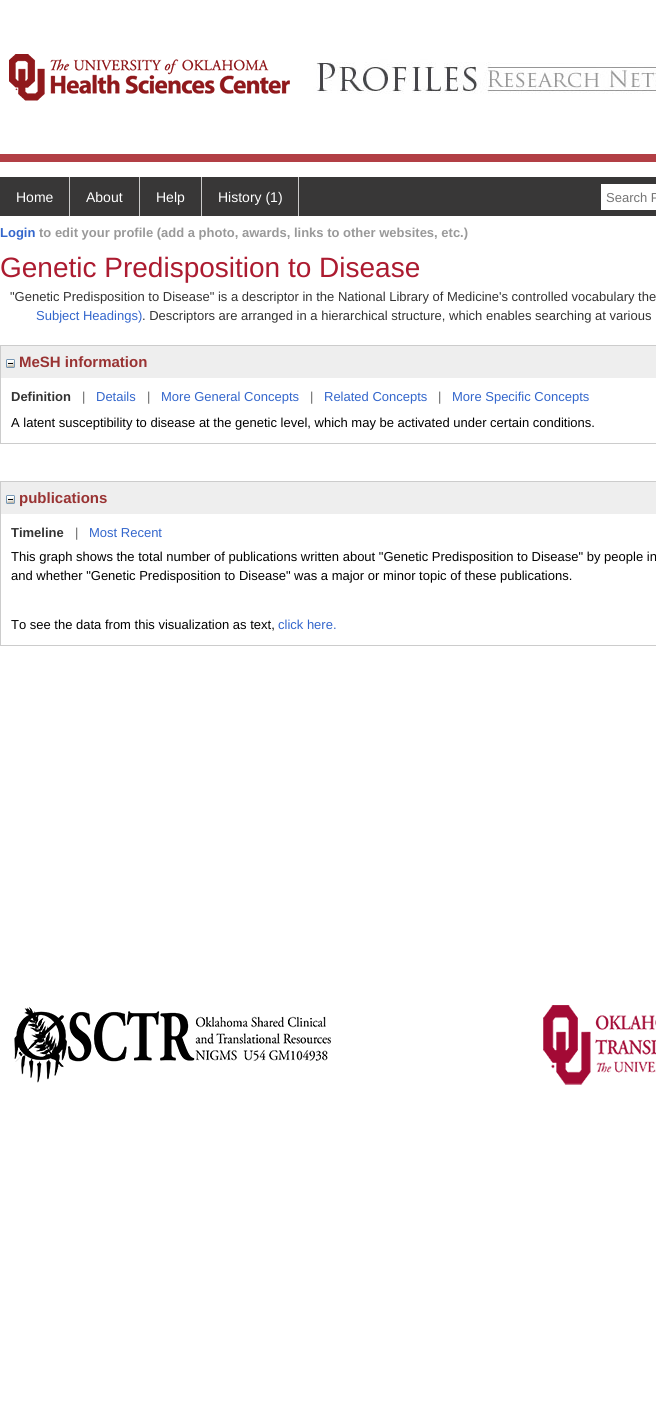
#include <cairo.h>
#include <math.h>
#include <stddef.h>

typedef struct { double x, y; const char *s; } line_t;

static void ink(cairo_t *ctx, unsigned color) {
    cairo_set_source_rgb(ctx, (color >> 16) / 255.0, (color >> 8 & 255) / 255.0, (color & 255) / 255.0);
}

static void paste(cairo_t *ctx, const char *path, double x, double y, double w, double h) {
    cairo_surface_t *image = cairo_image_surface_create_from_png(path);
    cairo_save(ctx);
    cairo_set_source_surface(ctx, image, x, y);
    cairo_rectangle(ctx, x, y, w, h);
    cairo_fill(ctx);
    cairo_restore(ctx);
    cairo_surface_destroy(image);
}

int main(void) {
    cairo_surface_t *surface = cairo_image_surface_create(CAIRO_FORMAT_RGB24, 656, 1414);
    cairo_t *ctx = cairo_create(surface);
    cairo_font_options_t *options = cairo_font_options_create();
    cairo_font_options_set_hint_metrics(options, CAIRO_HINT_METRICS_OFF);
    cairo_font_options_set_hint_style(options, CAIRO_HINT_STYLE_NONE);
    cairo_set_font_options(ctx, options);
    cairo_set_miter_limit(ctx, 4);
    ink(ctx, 0xFFFFFF);
    cairo_paint(ctx);
    ink(ctx, 0xB23F45);
    cairo_rectangle(ctx, 0, 154, 656, 8);
    cairo_fill(ctx);
    paste(ctx, "media/1.png", 9, 54, 647, 47);
    ink(ctx, 0x383737);
    cairo_rectangle(ctx, 0, 177, 656, 39);
    cairo_fill(ctx);
    ink(ctx, 0xCCCCCC);
    cairo_rectangle(ctx, 69, 177, 1, 39);
    cairo_fill(ctx);
    cairo_select_font_face(ctx, "Liberation Sans", CAIRO_FONT_SLANT_NORMAL, CAIRO_FONT_WEIGHT_NORMAL);
    cairo_set_font_size(ctx, 14);
    ink(ctx, 0xFFFFFF);
    cairo_move_to(ctx, 16, 202);
    cairo_show_text(ctx, "Home");
    ink(ctx, 0xCCCCCC);
    cairo_rectangle(ctx, 139, 177, 1, 39);
    cairo_fill(ctx);
    ink(ctx, 0xFFFFFF);
    cairo_move_to(ctx, 86, 202);
    cairo_show_text(ctx, "About");
    ink(ctx, 0xCCCCCC);
    cairo_rectangle(ctx, 201, 177, 1, 39);
    cairo_fill(ctx);
    ink(ctx, 0xFFFFFF);
    cairo_move_to(ctx, 156, 202);
    cairo_show_text(ctx, "Help");
    ink(ctx, 0xCCCCCC);
    cairo_rectangle(ctx, 298, 177, 1, 39);
    cairo_fill(ctx);
    ink(ctx, 0xFFFFFF);
    cairo_move_to(ctx, 218, 202);
    cairo_show_text(ctx, "History (1)");
    cairo_rectangle(ctx, 601, 184, 55, 26);
    cairo_fill(ctx);
    cairo_set_font_size(ctx, 13);
    ink(ctx, 0x757575);
    cairo_move_to(ctx, 606, 202);
    cairo_show_text(ctx, "Search P");
    cairo_select_font_face(ctx, "Liberation Sans", CAIRO_FONT_SLANT_NORMAL, CAIRO_FONT_WEIGHT_BOLD);
    ink(ctx, 0x3366CC);
    cairo_move_to(ctx, 0, 237);
    cairo_show_text(ctx, "Login");
    ink(ctx, 0x999999);
    cairo_move_to(ctx, 39, 237);
    cairo_show_text(ctx, "to edit your profile (add a photo, awards, links to other websites, etc.)");
    cairo_select_font_face(ctx, "Liberation Sans", CAIRO_FONT_SLANT_NORMAL, CAIRO_FONT_WEIGHT_NORMAL);
    cairo_set_font_size(ctx, 28);
    ink(ctx, 0xAC1B30);
    cairo_move_to(ctx, 0, 277);
    cairo_show_text(ctx, "Genetic Predisposition to Disease");
    cairo_set_font_size(ctx, 13);
    ink(ctx, 0x333333);
    cairo_move_to(ctx, 10, 301);
    cairo_show_text(ctx, "\"Genetic Predisposition to Disease\" is a descriptor in the National Library of Medicine's controlled vocabulary the");
    ink(ctx, 0x3366CC);
    cairo_move_to(ctx, 36, 320);
    cairo_show_text(ctx, "Subject Headings)");
    ink(ctx, 0x333333);
    cairo_move_to(ctx, 142, 320);
    cairo_show_text(ctx, ". Descriptors are arranged in a hierarchical structure, which enables searching at various");
    cairo_rectangle(ctx, 0.5, 345.5, 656, 98);
    ink(ctx, 0xCCCCCC);
    cairo_set_line_width(ctx, 1);
    cairo_stroke(ctx);
    ink(ctx, 0xEEEEEE);
    cairo_rectangle(ctx, 1, 346, 655, 32);
    cairo_fill(ctx);
    paste(ctx, "media/2.png", 6, 359, 9, 9);
    cairo_select_font_face(ctx, "Liberation Sans", CAIRO_FONT_SLANT_NORMAL, CAIRO_FONT_WEIGHT_BOLD);
    cairo_set_font_size(ctx, 15);
    ink(ctx, 0x993333);
    cairo_move_to(ctx, 19, 367);
    cairo_show_text(ctx, "MeSH information");
    cairo_set_font_size(ctx, 13);
    ink(ctx, 0x333333);
    cairo_move_to(ctx, 11, 401);
    cairo_show_text(ctx, "Definition");
    cairo_select_font_face(ctx, "Liberation Sans", CAIRO_FONT_SLANT_NORMAL, CAIRO_FONT_WEIGHT_NORMAL);
    ink(ctx, 0x666666);
    cairo_move_to(ctx, 82, 401);
    cairo_show_text(ctx, "|");
    ink(ctx, 0x3366CC);
    cairo_move_to(ctx, 96, 401);
    cairo_show_text(ctx, "Details");
    ink(ctx, 0x666666);
    cairo_move_to(ctx, 147, 401);
    cairo_show_text(ctx, "|");
    ink(ctx, 0x3366CC);
    cairo_move_to(ctx, 161, 401);
    cairo_show_text(ctx, "More General Concepts");
    ink(ctx, 0x666666);
    cairo_move_to(ctx, 310, 401);
    cairo_show_text(ctx, "|");
    ink(ctx, 0x3366CC);
    cairo_move_to(ctx, 324, 401);
    cairo_show_text(ctx, "Related Concepts");
    ink(ctx, 0x666666);
    cairo_move_to(ctx, 438, 401);
    cairo_show_text(ctx, "|");
    ink(ctx, 0x3366CC);
    cairo_move_to(ctx, 452, 401);
    cairo_show_text(ctx, "More Specific Concepts");
    ink(ctx, 0x000000);
    cairo_move_to(ctx, 11, 427);
    cairo_show_text(ctx, "A latent susceptibility to disease at the genetic level, which may be activated under certain conditions.");
    cairo_rectangle(ctx, 0.5, 481.5, 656, 164);
    ink(ctx, 0xCCCCCC);
    cairo_stroke(ctx);
    ink(ctx, 0xEEEEEE);
    cairo_rectangle(ctx, 1, 482, 655, 32);
    cairo_fill(ctx);
    paste(ctx, "media/2.png", 6, 495, 9, 9);
    cairo_select_font_face(ctx, "Liberation Sans", CAIRO_FONT_SLANT_NORMAL, CAIRO_FONT_WEIGHT_BOLD);
    cairo_set_font_size(ctx, 15);
    ink(ctx, 0x993333);
    cairo_move_to(ctx, 19, 503);
    cairo_show_text(ctx, "publications");
    cairo_set_font_size(ctx, 13);
    ink(ctx, 0x333333);
    cairo_move_to(ctx, 11, 537);
    cairo_show_text(ctx, "Timeline");
    cairo_select_font_face(ctx, "Liberation Sans", CAIRO_FONT_SLANT_NORMAL, CAIRO_FONT_WEIGHT_NORMAL);
    ink(ctx, 0x666666);
    cairo_move_to(ctx, 75, 537);
    cairo_show_text(ctx, "|");
    ink(ctx, 0x3366CC);
    cairo_move_to(ctx, 89, 537);
    cairo_show_text(ctx, "Most Recent");
    ink(ctx, 0x000000);
    {
        static const line_t items[] = {
            {11, 561, "This graph shows the total number of publications written about \"Genetic Predisposition to Disease\" by people in"},
            {11, 580, "and whether \"Genetic Predisposition to Disease\" was a major or minor topic of these publications."},
            {11, 629, "To see the data from this visualization as text,"},
        };
        for (size_t i = 0; i < sizeof items / sizeof *items; i++) {
            cairo_move_to(ctx, items[i].x, items[i].y);
            cairo_show_text(ctx, items[i].s);
        }
    }
    ink(ctx, 0x3366CC);
    cairo_move_to(ctx, 278, 629);
    cairo_show_text(ctx, "click here.");
    paste(ctx, "media/3.png", 14, 1005, 642, 80);
    cairo_surface_write_to_png(surface, "image.png");
    cairo_font_options_destroy(options);
    cairo_destroy(ctx);
    cairo_surface_destroy(surface);
    return 0;
}
